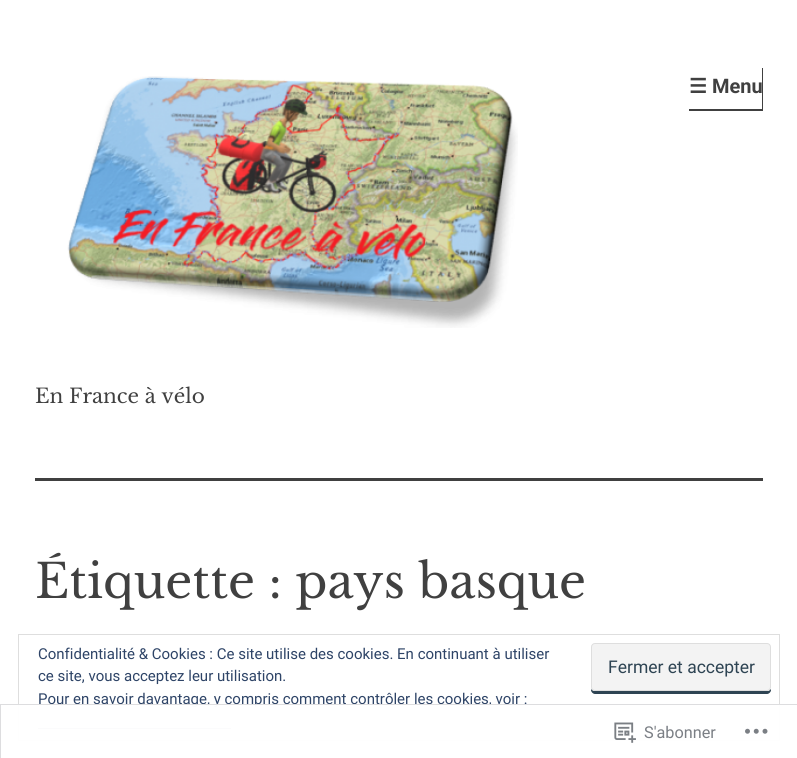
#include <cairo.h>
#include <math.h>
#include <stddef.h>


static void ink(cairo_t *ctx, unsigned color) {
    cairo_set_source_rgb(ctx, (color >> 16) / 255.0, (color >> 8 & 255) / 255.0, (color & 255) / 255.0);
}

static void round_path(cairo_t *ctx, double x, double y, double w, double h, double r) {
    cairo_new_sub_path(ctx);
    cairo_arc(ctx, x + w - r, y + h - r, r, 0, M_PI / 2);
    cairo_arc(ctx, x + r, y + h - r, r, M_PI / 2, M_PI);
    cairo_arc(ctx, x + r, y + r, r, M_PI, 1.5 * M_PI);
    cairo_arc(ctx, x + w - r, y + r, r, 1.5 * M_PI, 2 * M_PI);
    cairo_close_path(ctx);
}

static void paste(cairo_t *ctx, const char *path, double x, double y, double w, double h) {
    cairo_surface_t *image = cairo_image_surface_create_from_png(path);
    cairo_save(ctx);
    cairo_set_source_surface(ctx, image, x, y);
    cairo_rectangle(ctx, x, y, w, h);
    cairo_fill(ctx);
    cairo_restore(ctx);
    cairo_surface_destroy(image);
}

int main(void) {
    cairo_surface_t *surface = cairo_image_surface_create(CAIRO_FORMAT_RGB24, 797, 758);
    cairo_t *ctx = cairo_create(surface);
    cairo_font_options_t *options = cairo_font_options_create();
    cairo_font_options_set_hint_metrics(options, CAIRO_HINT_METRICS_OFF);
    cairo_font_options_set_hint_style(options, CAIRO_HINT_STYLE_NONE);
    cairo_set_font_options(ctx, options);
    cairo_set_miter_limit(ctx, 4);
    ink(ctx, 0xFFFFFF);
    cairo_paint(ctx);
    ink(ctx, 0x404040);
    cairo_rectangle(ctx, 35, 478, 728, 3);
    cairo_fill(ctx);
    cairo_new_path(ctx);
    cairo_move_to(ctx, 689, 109);
    cairo_line_to(ctx, 689, 111);
    cairo_line_to(ctx, 763, 111);
    cairo_line_to(ctx, 763, 68);
    cairo_line_to(ctx, 762, 68);
    cairo_line_to(ctx, 762, 109);
    cairo_close_path(ctx);
    cairo_fill(ctx);
    cairo_select_font_face(ctx, "DejaVu Sans", CAIRO_FONT_SLANT_NORMAL, CAIRO_FONT_WEIGHT_BOLD);
    cairo_set_font_size(ctx, 20);
    cairo_move_to(ctx, 689, 93);
    cairo_show_text(ctx, "☰");
    cairo_select_font_face(ctx, "Roboto", CAIRO_FONT_SLANT_NORMAL, CAIRO_FONT_WEIGHT_BOLD);
    cairo_move_to(ctx, 712, 93);
    cairo_show_text(ctx, "Menu");
    paste(ctx, "media/1.png", 67, 76, 451, 252);
    cairo_select_font_face(ctx, "Libre Baskerville", CAIRO_FONT_SLANT_NORMAL, CAIRO_FONT_WEIGHT_NORMAL);
    cairo_move_to(ctx, 35, 403);
    cairo_show_text(ctx, "En France à vélo");
    cairo_set_font_size(ctx, 47.1);
    cairo_move_to(ctx, 35, 598);
    cairo_show_text(ctx, "Étiquette : pays basque");
    cairo_rectangle(ctx, 18.5, 634.5, 761, 106);
    ink(ctx, 0xDEDEDE);
    cairo_set_line_width(ctx, 1);
    cairo_stroke(ctx);
    cairo_select_font_face(ctx, "Roboto", CAIRO_FONT_SLANT_NORMAL, CAIRO_FONT_WEIGHT_NORMAL);
    cairo_set_font_size(ctx, 15);
    ink(ctx, 0x2E4467);
    cairo_move_to(ctx, 38, 659);
    cairo_show_text(ctx, "Confidentialité & Cookies : Ce site utilise des cookies. En continuant à utiliser");
    cairo_move_to(ctx, 38, 681);
    cairo_show_text(ctx, "ce site, vous acceptez leur utilisation.");
    ink(ctx, 0x2E4453);
    cairo_new_path(ctx);
    cairo_move_to(ctx, 591, 648);
    cairo_line_to(ctx, 591, 690);
    cairo_curve_to(ctx, 591, 692, 593, 694, 595, 694);
    cairo_line_to(ctx, 767, 694);
    cairo_curve_to(ctx, 769, 694, 771, 692, 771, 690);
    cairo_line_to(ctx, 771, 689);
    cairo_curve_to(ctx, 770, 690, 769, 691, 768, 691);
    cairo_line_to(ctx, 595, 691);
    cairo_curve_to(ctx, 593, 691, 591, 690, 591, 688);
    cairo_close_path(ctx);
    cairo_fill(ctx);
    ink(ctx, 0xF3F3F3);
    round_path(ctx, 591.5, 643.5, 179, 47, 3.5);
    cairo_fill_preserve(ctx);
    ink(ctx, 0xDEDEDE);
    cairo_stroke(ctx);
    cairo_set_font_size(ctx, 17.5);
    ink(ctx, 0x2E4453);
    cairo_move_to(ctx, 608, 673);
    cairo_show_text(ctx, "Fermer et accepter");
    cairo_set_font_size(ctx, 15);
    ink(ctx, 0x2E4467);
    cairo_move_to(ctx, 38, 704);
    cairo_show_text(ctx, "Pour en savoir davantage, y compris comment contrôler les cookies, voir :");
    cairo_rectangle(ctx, 38, 728, 193, 1);
    cairo_fill(ctx);
    cairo_set_source_rgba(ctx, 1, 1, 1, 0.98);
    cairo_rectangle(ctx, 18, 704, 762, 37);
    cairo_fill(ctx);
    cairo_rectangle(ctx, 0.5, 704.5, 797, 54);
    cairo_set_source_rgba(ctx, 0.863, 0.863, 0.871, 0.98);
    cairo_stroke(ctx);
    paste(ctx, "media/2.png", 614, 722, 22, 21);
    cairo_set_font_size(ctx, 16.25);
    ink(ctx, 0x7B7F85);
    cairo_move_to(ctx, 644, 738);
    cairo_show_text(ctx, "S'abonner");
    paste(ctx, "media/3.png", 745, 728, 23, 6);
    cairo_surface_write_to_png(surface, "image.png");
    cairo_font_options_destroy(options);
    cairo_destroy(ctx);
    cairo_surface_destroy(surface);
    return 0;
}
